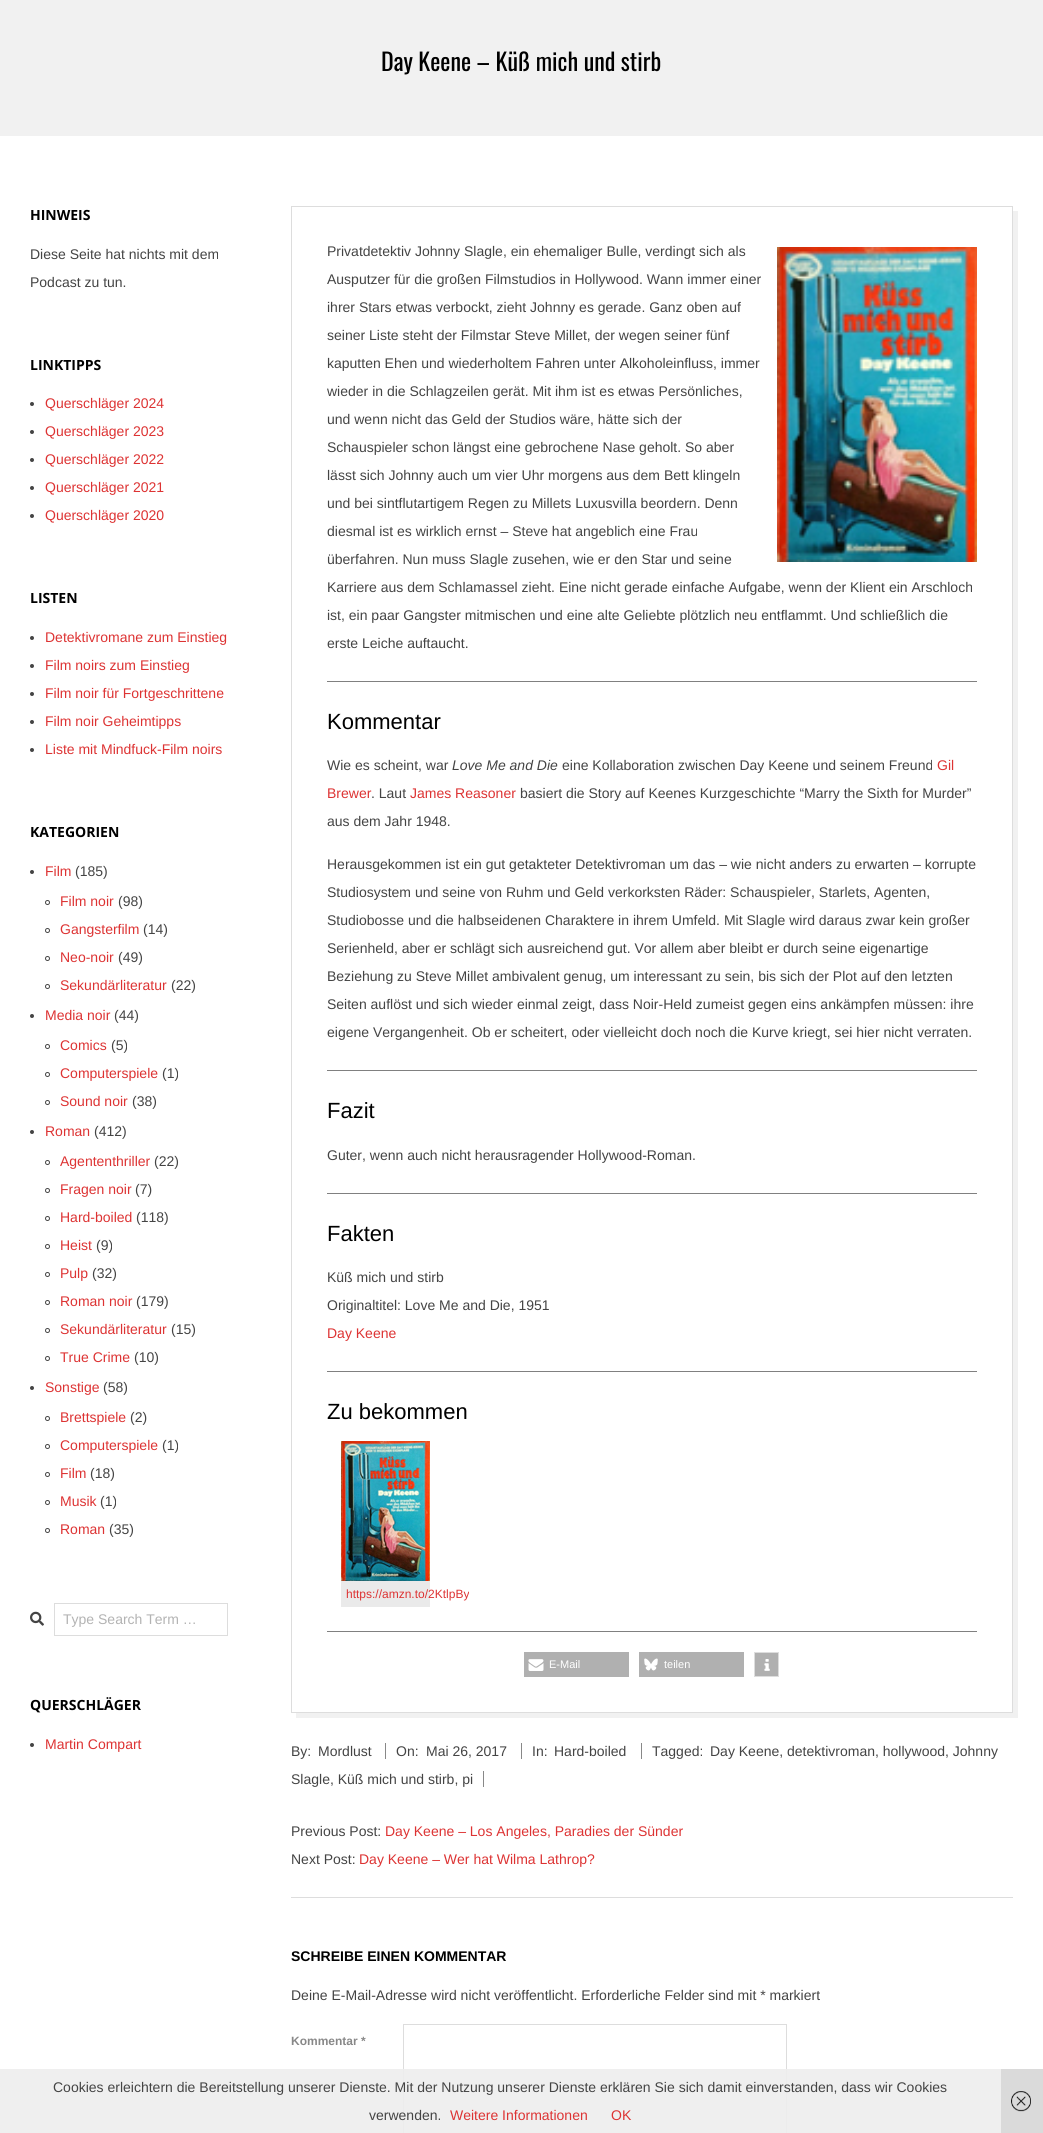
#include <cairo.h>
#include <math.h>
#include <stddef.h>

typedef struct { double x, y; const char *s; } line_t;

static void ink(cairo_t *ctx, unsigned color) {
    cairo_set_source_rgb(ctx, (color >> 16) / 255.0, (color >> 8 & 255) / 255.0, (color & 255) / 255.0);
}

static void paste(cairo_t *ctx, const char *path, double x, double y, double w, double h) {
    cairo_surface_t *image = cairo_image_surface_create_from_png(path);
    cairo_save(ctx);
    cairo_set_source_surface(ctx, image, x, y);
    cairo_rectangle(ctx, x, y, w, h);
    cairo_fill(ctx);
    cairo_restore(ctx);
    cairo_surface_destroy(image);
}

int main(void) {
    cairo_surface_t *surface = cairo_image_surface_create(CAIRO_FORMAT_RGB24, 1043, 2133);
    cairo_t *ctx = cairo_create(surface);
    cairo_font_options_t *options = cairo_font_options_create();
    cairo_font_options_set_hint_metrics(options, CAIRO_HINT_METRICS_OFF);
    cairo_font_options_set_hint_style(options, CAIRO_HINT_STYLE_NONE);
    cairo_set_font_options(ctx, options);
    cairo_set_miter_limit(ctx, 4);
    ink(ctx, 0xFFFFFF);
    cairo_paint(ctx);
    ink(ctx, 0xF1F1F1);
    cairo_rectangle(ctx, 0, 0, 1043, 136);
    cairo_fill(ctx);
    cairo_select_font_face(ctx, "Oswald", CAIRO_FONT_SLANT_NORMAL, CAIRO_FONT_WEIGHT_NORMAL);
    cairo_set_font_size(ctx, 24);
    ink(ctx, 0x000000);
    cairo_move_to(ctx, 381, 71);
    cairo_show_text(ctx, "Day Keene – Küß mich und stirb");
    cairo_select_font_face(ctx, "Open Sans", CAIRO_FONT_SLANT_NORMAL, CAIRO_FONT_WEIGHT_BOLD);
    cairo_set_font_size(ctx, 14);
    cairo_move_to(ctx, 30, 220);
    cairo_show_text(ctx, "HINWEIS");
    cairo_select_font_face(ctx, "Liberation Sans", CAIRO_FONT_SLANT_NORMAL, CAIRO_FONT_WEIGHT_NORMAL);
    ink(ctx, 0x444444);
    cairo_move_to(ctx, 30, 259);
    cairo_show_text(ctx, "Diese Seite hat nichts mit dem");
    cairo_move_to(ctx, 30, 287);
    cairo_show_text(ctx, "Podcast zu tun.");
    cairo_select_font_face(ctx, "Open Sans", CAIRO_FONT_SLANT_NORMAL, CAIRO_FONT_WEIGHT_BOLD);
    ink(ctx, 0x000000);
    cairo_move_to(ctx, 30, 370);
    cairo_show_text(ctx, "LINKTIPPS");
    ink(ctx, 0x444444);
    cairo_new_path(ctx);
    cairo_arc(ctx, 32, 404, 2, 0, 2 * M_PI);
    cairo_fill(ctx);
    cairo_select_font_face(ctx, "Liberation Sans", CAIRO_FONT_SLANT_NORMAL, CAIRO_FONT_WEIGHT_NORMAL);
    ink(ctx, 0xDD3333);
    cairo_move_to(ctx, 45, 408);
    cairo_show_text(ctx, "Querschläger 2024");
    ink(ctx, 0x444444);
    cairo_new_path(ctx);
    cairo_arc(ctx, 32, 432, 2, 0, 2 * M_PI);
    cairo_fill(ctx);
    ink(ctx, 0xDD3333);
    cairo_move_to(ctx, 45, 436);
    cairo_show_text(ctx, "Querschläger 2023");
    ink(ctx, 0x444444);
    cairo_new_path(ctx);
    cairo_arc(ctx, 32, 460, 2, 0, 2 * M_PI);
    cairo_fill(ctx);
    ink(ctx, 0xDD3333);
    cairo_move_to(ctx, 45, 464);
    cairo_show_text(ctx, "Querschläger 2022");
    ink(ctx, 0x444444);
    cairo_new_path(ctx);
    cairo_arc(ctx, 32, 488, 2, 0, 2 * M_PI);
    cairo_fill(ctx);
    ink(ctx, 0xDD3333);
    cairo_move_to(ctx, 45, 492);
    cairo_show_text(ctx, "Querschläger 2021");
    ink(ctx, 0x444444);
    cairo_new_path(ctx);
    cairo_arc(ctx, 32, 516, 2, 0, 2 * M_PI);
    cairo_fill(ctx);
    ink(ctx, 0xDD3333);
    cairo_move_to(ctx, 45, 520);
    cairo_show_text(ctx, "Querschläger 2020");
    cairo_select_font_face(ctx, "Open Sans", CAIRO_FONT_SLANT_NORMAL, CAIRO_FONT_WEIGHT_BOLD);
    ink(ctx, 0x000000);
    cairo_move_to(ctx, 30, 603);
    cairo_show_text(ctx, "LISTEN");
    ink(ctx, 0x444444);
    cairo_new_path(ctx);
    cairo_arc(ctx, 32, 638, 2, 0, 2 * M_PI);
    cairo_fill(ctx);
    cairo_select_font_face(ctx, "Liberation Sans", CAIRO_FONT_SLANT_NORMAL, CAIRO_FONT_WEIGHT_NORMAL);
    ink(ctx, 0xDD3333);
    cairo_move_to(ctx, 45, 642);
    cairo_show_text(ctx, "Detektivromane zum Einstieg");
    ink(ctx, 0x444444);
    cairo_new_path(ctx);
    cairo_arc(ctx, 32, 666, 2, 0, 2 * M_PI);
    cairo_fill(ctx);
    ink(ctx, 0xDD3333);
    cairo_move_to(ctx, 45, 670);
    cairo_show_text(ctx, "Film noirs zum Einstieg");
    ink(ctx, 0x444444);
    cairo_new_path(ctx);
    cairo_arc(ctx, 32, 694, 2, 0, 2 * M_PI);
    cairo_fill(ctx);
    ink(ctx, 0xDD3333);
    cairo_move_to(ctx, 45, 698);
    cairo_show_text(ctx, "Film noir für Fortgeschrittene");
    ink(ctx, 0x444444);
    cairo_new_path(ctx);
    cairo_arc(ctx, 32, 722, 2, 0, 2 * M_PI);
    cairo_fill(ctx);
    ink(ctx, 0xDD3333);
    cairo_move_to(ctx, 45, 726);
    cairo_show_text(ctx, "Film noir Geheimtipps");
    ink(ctx, 0x444444);
    cairo_new_path(ctx);
    cairo_arc(ctx, 32, 750, 2, 0, 2 * M_PI);
    cairo_fill(ctx);
    ink(ctx, 0xDD3333);
    cairo_move_to(ctx, 45, 754);
    cairo_show_text(ctx, "Liste mit Mindfuck-Film noirs");
    cairo_select_font_face(ctx, "Open Sans", CAIRO_FONT_SLANT_NORMAL, CAIRO_FONT_WEIGHT_BOLD);
    ink(ctx, 0x000000);
    cairo_move_to(ctx, 30, 837);
    cairo_show_text(ctx, "KATEGORIEN");
    ink(ctx, 0x444444);
    cairo_new_path(ctx);
    cairo_arc(ctx, 32, 872, 2, 0, 2 * M_PI);
    cairo_fill(ctx);
    cairo_select_font_face(ctx, "Liberation Sans", CAIRO_FONT_SLANT_NORMAL, CAIRO_FONT_WEIGHT_NORMAL);
    ink(ctx, 0xDD3333);
    cairo_move_to(ctx, 45, 876);
    cairo_show_text(ctx, "Film");
    ink(ctx, 0x444444);
    cairo_move_to(ctx, 75, 876);
    cairo_show_text(ctx, "(185)");
    cairo_new_path(ctx);
    cairo_arc(ctx, 47.5, 902.5, 2, 0, 2 * M_PI);
    cairo_set_line_width(ctx, 1);
    cairo_stroke(ctx);
    ink(ctx, 0xDD3333);
    cairo_move_to(ctx, 60, 906);
    cairo_show_text(ctx, "Film noir");
    ink(ctx, 0x444444);
    cairo_move_to(ctx, 118, 906);
    cairo_show_text(ctx, "(98)");
    cairo_new_path(ctx);
    cairo_arc(ctx, 47.5, 930.5, 2, 0, 2 * M_PI);
    cairo_stroke(ctx);
    ink(ctx, 0xDD3333);
    cairo_move_to(ctx, 60, 934);
    cairo_show_text(ctx, "Gangsterfilm");
    ink(ctx, 0x444444);
    cairo_move_to(ctx, 143, 934);
    cairo_show_text(ctx, "(14)");
    cairo_new_path(ctx);
    cairo_arc(ctx, 47.5, 958.5, 2, 0, 2 * M_PI);
    cairo_stroke(ctx);
    ink(ctx, 0xDD3333);
    cairo_move_to(ctx, 60, 962);
    cairo_show_text(ctx, "Neo-noir");
    ink(ctx, 0x444444);
    cairo_move_to(ctx, 118, 962);
    cairo_show_text(ctx, "(49)");
    cairo_new_path(ctx);
    cairo_arc(ctx, 47.5, 986.5, 2, 0, 2 * M_PI);
    cairo_stroke(ctx);
    ink(ctx, 0xDD3333);
    cairo_move_to(ctx, 60, 990);
    cairo_show_text(ctx, "Sekundärliteratur");
    ink(ctx, 0x444444);
    cairo_move_to(ctx, 171, 990);
    cairo_show_text(ctx, "(22)");
    cairo_new_path(ctx);
    cairo_arc(ctx, 32, 1016, 2, 0, 2 * M_PI);
    cairo_fill(ctx);
    ink(ctx, 0xDD3333);
    cairo_move_to(ctx, 45, 1020);
    cairo_show_text(ctx, "Media noir");
    ink(ctx, 0x444444);
    cairo_move_to(ctx, 114, 1020);
    cairo_show_text(ctx, "(44)");
    cairo_new_path(ctx);
    cairo_arc(ctx, 47.5, 1046.5, 2, 0, 2 * M_PI);
    cairo_stroke(ctx);
    ink(ctx, 0xDD3333);
    cairo_move_to(ctx, 60, 1050);
    cairo_show_text(ctx, "Comics");
    ink(ctx, 0x444444);
    cairo_move_to(ctx, 111, 1050);
    cairo_show_text(ctx, "(5)");
    cairo_new_path(ctx);
    cairo_arc(ctx, 47.5, 1074.5, 2, 0, 2 * M_PI);
    cairo_stroke(ctx);
    ink(ctx, 0xDD3333);
    cairo_move_to(ctx, 60, 1078);
    cairo_show_text(ctx, "Computerspiele");
    ink(ctx, 0x444444);
    cairo_move_to(ctx, 162, 1078);
    cairo_show_text(ctx, "(1)");
    cairo_new_path(ctx);
    cairo_arc(ctx, 47.5, 1102.5, 2, 0, 2 * M_PI);
    cairo_stroke(ctx);
    ink(ctx, 0xDD3333);
    cairo_move_to(ctx, 60, 1106);
    cairo_show_text(ctx, "Sound noir");
    ink(ctx, 0x444444);
    cairo_move_to(ctx, 132, 1106);
    cairo_show_text(ctx, "(38)");
    cairo_new_path(ctx);
    cairo_arc(ctx, 32, 1132, 2, 0, 2 * M_PI);
    cairo_fill(ctx);
    ink(ctx, 0xDD3333);
    cairo_move_to(ctx, 45, 1136);
    cairo_show_text(ctx, "Roman");
    ink(ctx, 0x444444);
    cairo_move_to(ctx, 94, 1136);
    cairo_show_text(ctx, "(412)");
    cairo_new_path(ctx);
    cairo_arc(ctx, 47.5, 1162.5, 2, 0, 2 * M_PI);
    cairo_stroke(ctx);
    ink(ctx, 0xDD3333);
    cairo_move_to(ctx, 60, 1166);
    cairo_show_text(ctx, "Agententhriller");
    ink(ctx, 0x444444);
    cairo_move_to(ctx, 154, 1166);
    cairo_show_text(ctx, "(22)");
    cairo_new_path(ctx);
    cairo_arc(ctx, 47.5, 1190.5, 2, 0, 2 * M_PI);
    cairo_stroke(ctx);
    ink(ctx, 0xDD3333);
    cairo_move_to(ctx, 60, 1194);
    cairo_show_text(ctx, "Fragen noir");
    ink(ctx, 0x444444);
    cairo_move_to(ctx, 135, 1194);
    cairo_show_text(ctx, "(7)");
    cairo_new_path(ctx);
    cairo_arc(ctx, 47.5, 1218.5, 2, 0, 2 * M_PI);
    cairo_stroke(ctx);
    ink(ctx, 0xDD3333);
    cairo_move_to(ctx, 60, 1222);
    cairo_show_text(ctx, "Hard-boiled");
    ink(ctx, 0x444444);
    cairo_move_to(ctx, 136, 1222);
    cairo_show_text(ctx, "(118)");
    cairo_new_path(ctx);
    cairo_arc(ctx, 47.5, 1246.5, 2, 0, 2 * M_PI);
    cairo_stroke(ctx);
    ink(ctx, 0xDD3333);
    cairo_move_to(ctx, 60, 1250);
    cairo_show_text(ctx, "Heist");
    ink(ctx, 0x444444);
    cairo_move_to(ctx, 96, 1250);
    cairo_show_text(ctx, "(9)");
    cairo_new_path(ctx);
    cairo_arc(ctx, 47.5, 1274.5, 2, 0, 2 * M_PI);
    cairo_stroke(ctx);
    ink(ctx, 0xDD3333);
    cairo_move_to(ctx, 60, 1278);
    cairo_show_text(ctx, "Pulp");
    ink(ctx, 0x444444);
    cairo_move_to(ctx, 92, 1278);
    cairo_show_text(ctx, "(32)");
    cairo_new_path(ctx);
    cairo_arc(ctx, 47.5, 1302.5, 2, 0, 2 * M_PI);
    cairo_stroke(ctx);
    ink(ctx, 0xDD3333);
    cairo_move_to(ctx, 60, 1306);
    cairo_show_text(ctx, "Roman noir");
    ink(ctx, 0x444444);
    cairo_move_to(ctx, 136, 1306);
    cairo_show_text(ctx, "(179)");
    cairo_new_path(ctx);
    cairo_arc(ctx, 47.5, 1330.5, 2, 0, 2 * M_PI);
    cairo_stroke(ctx);
    ink(ctx, 0xDD3333);
    cairo_move_to(ctx, 60, 1334);
    cairo_show_text(ctx, "Sekundärliteratur");
    ink(ctx, 0x444444);
    cairo_move_to(ctx, 171, 1334);
    cairo_show_text(ctx, "(15)");
    cairo_new_path(ctx);
    cairo_arc(ctx, 47.5, 1358.5, 2, 0, 2 * M_PI);
    cairo_stroke(ctx);
    ink(ctx, 0xDD3333);
    cairo_move_to(ctx, 60, 1362);
    cairo_show_text(ctx, "True Crime");
    ink(ctx, 0x444444);
    cairo_move_to(ctx, 134, 1362);
    cairo_show_text(ctx, "(10)");
    cairo_new_path(ctx);
    cairo_arc(ctx, 32, 1388, 2, 0, 2 * M_PI);
    cairo_fill(ctx);
    ink(ctx, 0xDD3333);
    cairo_move_to(ctx, 45, 1392);
    cairo_show_text(ctx, "Sonstige");
    ink(ctx, 0x444444);
    cairo_move_to(ctx, 103, 1392);
    cairo_show_text(ctx, "(58)");
    cairo_new_path(ctx);
    cairo_arc(ctx, 47.5, 1418.5, 2, 0, 2 * M_PI);
    cairo_stroke(ctx);
    ink(ctx, 0xDD3333);
    cairo_move_to(ctx, 60, 1422);
    cairo_show_text(ctx, "Brettspiele");
    ink(ctx, 0x444444);
    cairo_move_to(ctx, 130, 1422);
    cairo_show_text(ctx, "(2)");
    cairo_new_path(ctx);
    cairo_arc(ctx, 47.5, 1446.5, 2, 0, 2 * M_PI);
    cairo_stroke(ctx);
    ink(ctx, 0xDD3333);
    cairo_move_to(ctx, 60, 1450);
    cairo_show_text(ctx, "Computerspiele");
    ink(ctx, 0x444444);
    cairo_move_to(ctx, 162, 1450);
    cairo_show_text(ctx, "(1)");
    cairo_new_path(ctx);
    cairo_arc(ctx, 47.5, 1474.5, 2, 0, 2 * M_PI);
    cairo_stroke(ctx);
    ink(ctx, 0xDD3333);
    cairo_move_to(ctx, 60, 1478);
    cairo_show_text(ctx, "Film");
    ink(ctx, 0x444444);
    cairo_move_to(ctx, 90, 1478);
    cairo_show_text(ctx, "(18)");
    cairo_new_path(ctx);
    cairo_arc(ctx, 47.5, 1502.5, 2, 0, 2 * M_PI);
    cairo_stroke(ctx);
    ink(ctx, 0xDD3333);
    cairo_move_to(ctx, 60, 1506);
    cairo_show_text(ctx, "Musik");
    ink(ctx, 0x444444);
    cairo_move_to(ctx, 100, 1506);
    cairo_show_text(ctx, "(1)");
    cairo_new_path(ctx);
    cairo_arc(ctx, 47.5, 1530.5, 2, 0, 2 * M_PI);
    cairo_stroke(ctx);
    ink(ctx, 0xDD3333);
    cairo_move_to(ctx, 60, 1534);
    cairo_show_text(ctx, "Roman");
    ink(ctx, 0x444444);
    cairo_move_to(ctx, 109, 1534);
    cairo_show_text(ctx, "(35)");
    paste(ctx, "media/1.png", 30, 1611, 14, 15);
    cairo_rectangle(ctx, 54.5, 1603.5, 173, 32);
    ink(ctx, 0xDDDDDD);
    cairo_stroke(ctx);
    ink(ctx, 0xB3B3B3);
    cairo_move_to(ctx, 63, 1624);
    cairo_show_text(ctx, "Type Search Term …");
    cairo_select_font_face(ctx, "Open Sans", CAIRO_FONT_SLANT_NORMAL, CAIRO_FONT_WEIGHT_BOLD);
    ink(ctx, 0x000000);
    cairo_move_to(ctx, 30, 1710);
    cairo_show_text(ctx, "QUERSCHLÄGER");
    ink(ctx, 0x444444);
    cairo_new_path(ctx);
    cairo_arc(ctx, 32, 1745, 2, 0, 2 * M_PI);
    cairo_fill(ctx);
    cairo_select_font_face(ctx, "Liberation Sans", CAIRO_FONT_SLANT_NORMAL, CAIRO_FONT_WEIGHT_NORMAL);
    ink(ctx, 0xDD3333);
    cairo_move_to(ctx, 45, 1749);
    cairo_show_text(ctx, "Martin Compart");
    ink(ctx, 0xF1F1F1);
    cairo_new_path(ctx);
    cairo_move_to(ctx, 296, 1713);
    cairo_line_to(ctx, 296, 1718);
    cairo_line_to(ctx, 1018, 1718);
    cairo_line_to(ctx, 1018, 211);
    cairo_line_to(ctx, 1013, 211);
    cairo_line_to(ctx, 1013, 1713);
    cairo_close_path(ctx);
    cairo_fill(ctx);
    cairo_rectangle(ctx, 291.5, 206.5, 721, 1506);
    ink(ctx, 0xDDDDDD);
    cairo_stroke(ctx);
    ink(ctx, 0x444444);
    cairo_move_to(ctx, 327, 256);
    cairo_show_text(ctx, "Privatdetektiv Johnny Slagle, ein ehemaliger Bulle, verdingt sich als");
    paste(ctx, "media/2.png", 777, 247, 200, 315);
    {
        static const line_t items[] = {
            {327, 284, "Ausputzer für die großen Filmstudios in Hollywood. Wann immer einer"},
            {327, 312, "ihrer Stars etwas verbockt, zieht Johnny es gerade. Ganz oben auf"},
            {327, 340, "seiner Liste steht der Filmstar Steve Millet, der wegen seiner fünf"},
            {327, 368, "kaputten Ehen und wiederholtem Fahren unter Alkoholeinfluss, immer"},
            {327, 396, "wieder in die Schlagzeilen gerät. Mit ihm ist es etwas Persönliches,"},
            {327, 424, "und wenn nicht das Geld der Studios wäre, hätte sich der"},
            {327, 452, "Schauspieler schon längst eine gebrochene Nase geholt. So aber"},
            {327, 480, "lässt sich Johnny auch um vier Uhr morgens aus dem Bett klingeln"},
            {327, 508, "und bei sintflutartigem Regen zu Millets Luxusvilla beordern. Denn"},
            {327, 536, "diesmal ist es wirklich ernst – Steve hat angeblich eine Frau"},
            {327, 564, "überfahren. Nun muss Slagle zusehen, wie er den Star und seine"},
            {327, 592, "Karriere aus dem Schlamassel zieht. Eine nicht gerade einfache Aufgabe, wenn der Klient ein Arschloch"},
            {327, 620, "ist, ein paar Gangster mitmischen und eine alte Geliebte plötzlich neu entflammt. Und schließlich die"},
            {327, 648, "erste Leiche auftaucht."},
        };
        for (size_t i = 0; i < sizeof items / sizeof *items; i++) {
            cairo_move_to(ctx, items[i].x, items[i].y);
            cairo_show_text(ctx, items[i].s);
        }
    }
    ink(ctx, 0x808080);
    cairo_rectangle(ctx, 327, 681, 650, 1);
    cairo_fill(ctx);
    cairo_set_font_size(ctx, 22);
    ink(ctx, 0x000000);
    cairo_move_to(ctx, 327, 729);
    cairo_show_text(ctx, "Kommentar");
    cairo_set_font_size(ctx, 14);
    ink(ctx, 0x444444);
    cairo_move_to(ctx, 327, 770);
    cairo_show_text(ctx, "Wie es scheint, war");
    cairo_select_font_face(ctx, "Liberation Sans", CAIRO_FONT_SLANT_ITALIC, CAIRO_FONT_WEIGHT_NORMAL);
    cairo_move_to(ctx, 452, 770);
    cairo_show_text(ctx, "Love Me and Die");
    cairo_select_font_face(ctx, "Liberation Sans", CAIRO_FONT_SLANT_NORMAL, CAIRO_FONT_WEIGHT_NORMAL);
    cairo_move_to(ctx, 562, 770);
    cairo_show_text(ctx, "eine Kollaboration zwischen Day Keene und seinem Freund");
    ink(ctx, 0xDD3333);
    cairo_move_to(ctx, 937, 770);
    cairo_show_text(ctx, "Gil");
    cairo_move_to(ctx, 327, 798);
    cairo_show_text(ctx, "Brewer");
    ink(ctx, 0x444444);
    cairo_move_to(ctx, 371, 798);
    cairo_show_text(ctx, ". Laut");
    ink(ctx, 0xDD3333);
    cairo_move_to(ctx, 410, 798);
    cairo_show_text(ctx, "James Reasoner");
    ink(ctx, 0x444444);
    {
        static const line_t items[] = {
            {520, 798, "basiert die Story auf Keenes Kurzgeschichte “Marry the Sixth for Murder”"},
            {327, 826, "aus dem Jahr 1948."},
            {327, 869, "Herausgekommen ist ein gut getakteter Detektivroman um das – wie nicht anders zu erwarten – korrupte"},
            {327, 897, "Studiosystem und seine von Ruhm und Geld verkorksten Räder: Schauspieler, Starlets, Agenten,"},
            {327, 925, "Studiobosse und die halbseidenen Charaktere in ihrem Umfeld. Mit Slagle wird daraus zwar kein großer"},
            {327, 953, "Serienheld, aber er schlägt sich ausreichend gut. Vor allem aber bleibt er durch seine eigenartige"},
            {327, 981, "Beziehung zu Steve Millet ambivalent genug, um interessant zu sein, bis sich der Plot auf den letzten"},
            {327, 1009, "Seiten auflöst und sich wieder einmal zeigt, dass Noir-Held zumeist gegen eins ankämpfen müssen: ihre"},
            {327, 1037, "eigene Vergangenheit. Ob er scheitert, oder vielleicht doch noch die Kurve kriegt, sei hier nicht verraten."},
        };
        for (size_t i = 0; i < sizeof items / sizeof *items; i++) {
            cairo_move_to(ctx, items[i].x, items[i].y);
            cairo_show_text(ctx, items[i].s);
        }
    }
    ink(ctx, 0x808080);
    cairo_rectangle(ctx, 327, 1070, 650, 1);
    cairo_fill(ctx);
    cairo_set_font_size(ctx, 22);
    ink(ctx, 0x000000);
    cairo_move_to(ctx, 327, 1118);
    cairo_show_text(ctx, "Fazit");
    cairo_set_font_size(ctx, 14);
    ink(ctx, 0x444444);
    cairo_move_to(ctx, 327, 1160);
    cairo_show_text(ctx, "Guter, wenn auch nicht herausragender Hollywood-Roman.");
    ink(ctx, 0x808080);
    cairo_rectangle(ctx, 327, 1193, 650, 1);
    cairo_fill(ctx);
    cairo_set_font_size(ctx, 22);
    ink(ctx, 0x000000);
    cairo_move_to(ctx, 327, 1241);
    cairo_show_text(ctx, "Fakten");
    cairo_set_font_size(ctx, 14);
    ink(ctx, 0x444444);
    cairo_move_to(ctx, 327, 1282);
    cairo_show_text(ctx, "Küß mich und stirb");
    cairo_move_to(ctx, 327, 1310);
    cairo_show_text(ctx, "Originaltitel: Love Me and Die, 1951");
    ink(ctx, 0xDD3333);
    cairo_move_to(ctx, 327, 1338);
    cairo_show_text(ctx, "Day Keene");
    ink(ctx, 0x808080);
    cairo_rectangle(ctx, 327, 1371, 650, 1);
    cairo_fill(ctx);
    cairo_set_font_size(ctx, 22);
    ink(ctx, 0x000000);
    cairo_move_to(ctx, 327, 1419);
    cairo_show_text(ctx, "Zu bekommen");
    paste(ctx, "media/3.png", 341, 1441, 89, 140);
    ink(ctx, 0xEAEAEA);
    cairo_rectangle(ctx, 341, 1581, 89, 26);
    cairo_fill(ctx);
    cairo_set_font_size(ctx, 12);
    ink(ctx, 0xDD3333);
    cairo_move_to(ctx, 346, 1598);
    cairo_show_text(ctx, "https://amzn.to/2KtlpBy");
    ink(ctx, 0x808080);
    cairo_rectangle(ctx, 327, 1631, 650, 1);
    cairo_fill(ctx);
    ink(ctx, 0xB0B0B0);
    cairo_rectangle(ctx, 524, 1652, 105, 25);
    cairo_fill(ctx);
    paste(ctx, "media/4.png", 528, 1659, 16, 12);
    cairo_set_font_size(ctx, 11);
    ink(ctx, 0xFFFFFF);
    cairo_move_to(ctx, 549, 1668);
    cairo_show_text(ctx, "E-Mail");
    ink(ctx, 0xB0B0B0);
    cairo_rectangle(ctx, 639, 1652, 105, 25);
    cairo_fill(ctx);
    paste(ctx, "media/5.png", 644, 1658, 14, 13);
    ink(ctx, 0xFFFFFF);
    cairo_move_to(ctx, 664, 1668);
    cairo_show_text(ctx, "teilen");
    ink(ctx, 0xB0B0B0);
    cairo_rectangle(ctx, 754.5, 1652.5, 24, 24);
    cairo_fill_preserve(ctx);
    ink(ctx, 0xDDDDDD);
    cairo_stroke(ctx);
    paste(ctx, "media/6.png", 764, 1659, 6, 12);
    cairo_set_font_size(ctx, 14);
    ink(ctx, 0x444444);
    cairo_move_to(ctx, 291, 1756);
    cairo_show_text(ctx, "By:");
    cairo_move_to(ctx, 318, 1756);
    cairo_show_text(ctx, "Mordlust");
    ink(ctx, 0x888888);
    cairo_rectangle(ctx, 385, 1743, 1, 16);
    cairo_fill(ctx);
    ink(ctx, 0x444444);
    cairo_move_to(ctx, 396, 1756);
    cairo_show_text(ctx, "On:");
    cairo_move_to(ctx, 426, 1756);
    cairo_show_text(ctx, "Mai 26, 2017");
    ink(ctx, 0x888888);
    cairo_rectangle(ctx, 521, 1743, 1, 16);
    cairo_fill(ctx);
    ink(ctx, 0x444444);
    cairo_move_to(ctx, 532, 1756);
    cairo_show_text(ctx, "In:");
    cairo_move_to(ctx, 554, 1756);
    cairo_show_text(ctx, "Hard-boiled");
    ink(ctx, 0x888888);
    cairo_rectangle(ctx, 641, 1743, 1, 16);
    cairo_fill(ctx);
    ink(ctx, 0x444444);
    {
        static const line_t items[] = {
            {652, 1756, "Tagged:"},
            {710, 1756, "Day Keene, detektivroman, hollywood, Johnny"},
            {291, 1784, "Slagle, Küß mich und stirb, pi"},
        };
        for (size_t i = 0; i < sizeof items / sizeof *items; i++) {
            cairo_move_to(ctx, items[i].x, items[i].y);
            cairo_show_text(ctx, items[i].s);
        }
    }
    ink(ctx, 0x888888);
    cairo_rectangle(ctx, 483, 1771, 1, 16);
    cairo_fill(ctx);
    ink(ctx, 0x444444);
    cairo_move_to(ctx, 291, 1836);
    cairo_show_text(ctx, "Previous Post:");
    ink(ctx, 0xDD3333);
    cairo_move_to(ctx, 385, 1836);
    cairo_show_text(ctx, "Day Keene – Los Angeles, Paradies der Sünder");
    ink(ctx, 0x444444);
    cairo_move_to(ctx, 291, 1864);
    cairo_show_text(ctx, "Next Post:");
    ink(ctx, 0xDD3333);
    cairo_move_to(ctx, 359, 1864);
    cairo_show_text(ctx, "Day Keene – Wer hat Wilma Lathrop?");
    ink(ctx, 0xDDDDDD);
    cairo_rectangle(ctx, 291, 1897, 722, 1);
    cairo_fill(ctx);
    cairo_select_font_face(ctx, "Liberation Sans", CAIRO_FONT_SLANT_NORMAL, CAIRO_FONT_WEIGHT_BOLD);
    ink(ctx, 0x000000);
    cairo_move_to(ctx, 291, 1961);
    cairo_show_text(ctx, "SCHREIBE EINEN KOMMENTAR");
    cairo_select_font_face(ctx, "Liberation Sans", CAIRO_FONT_SLANT_NORMAL, CAIRO_FONT_WEIGHT_NORMAL);
    ink(ctx, 0x444444);
    cairo_move_to(ctx, 291, 2000);
    cairo_show_text(ctx, "Deine E-Mail-Adresse wird nicht veröffentlicht. Erforderliche Felder sind mit * markiert");
    cairo_select_font_face(ctx, "Liberation Sans", CAIRO_FONT_SLANT_NORMAL, CAIRO_FONT_WEIGHT_BOLD);
    cairo_set_font_size(ctx, 12);
    ink(ctx, 0x888888);
    cairo_move_to(ctx, 291, 2045);
    cairo_show_text(ctx, "Kommentar *");
    cairo_rectangle(ctx, 403.5, 2024.5, 383, 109);
    ink(ctx, 0xDDDDDD);
    cairo_stroke(ctx);
    cairo_set_source_rgba(ctx, 0.933, 0.933, 0.933, 0.9);
    cairo_rectangle(ctx, 0, 2069, 1001, 64);
    cairo_fill(ctx);
    cairo_select_font_face(ctx, "Liberation Sans", CAIRO_FONT_SLANT_NORMAL, CAIRO_FONT_WEIGHT_NORMAL);
    cairo_set_font_size(ctx, 14);
    ink(ctx, 0x444444);
    cairo_move_to(ctx, 53, 2092);
    cairo_show_text(ctx, "Cookies erleichtern die Bereitstellung unserer Dienste. Mit der Nutzung unserer Dienste erklären Sie sich damit einverstanden, dass wir Cookies");
    cairo_move_to(ctx, 369, 2120);
    cairo_show_text(ctx, "verwenden.");
    ink(ctx, 0xDD3333);
    cairo_move_to(ctx, 450, 2120);
    cairo_show_text(ctx, "Weitere Informationen");
    cairo_move_to(ctx, 611, 2120);
    cairo_show_text(ctx, "OK");
    ink(ctx, 0xDADADA);
    cairo_rectangle(ctx, 1001, 2069, 42, 64);
    cairo_fill(ctx);
    paste(ctx, "media/7.png", 1011, 2091, 20, 21);
    cairo_surface_write_to_png(surface, "image.png");
    cairo_font_options_destroy(options);
    cairo_destroy(ctx);
    cairo_surface_destroy(surface);
    return 0;
}
